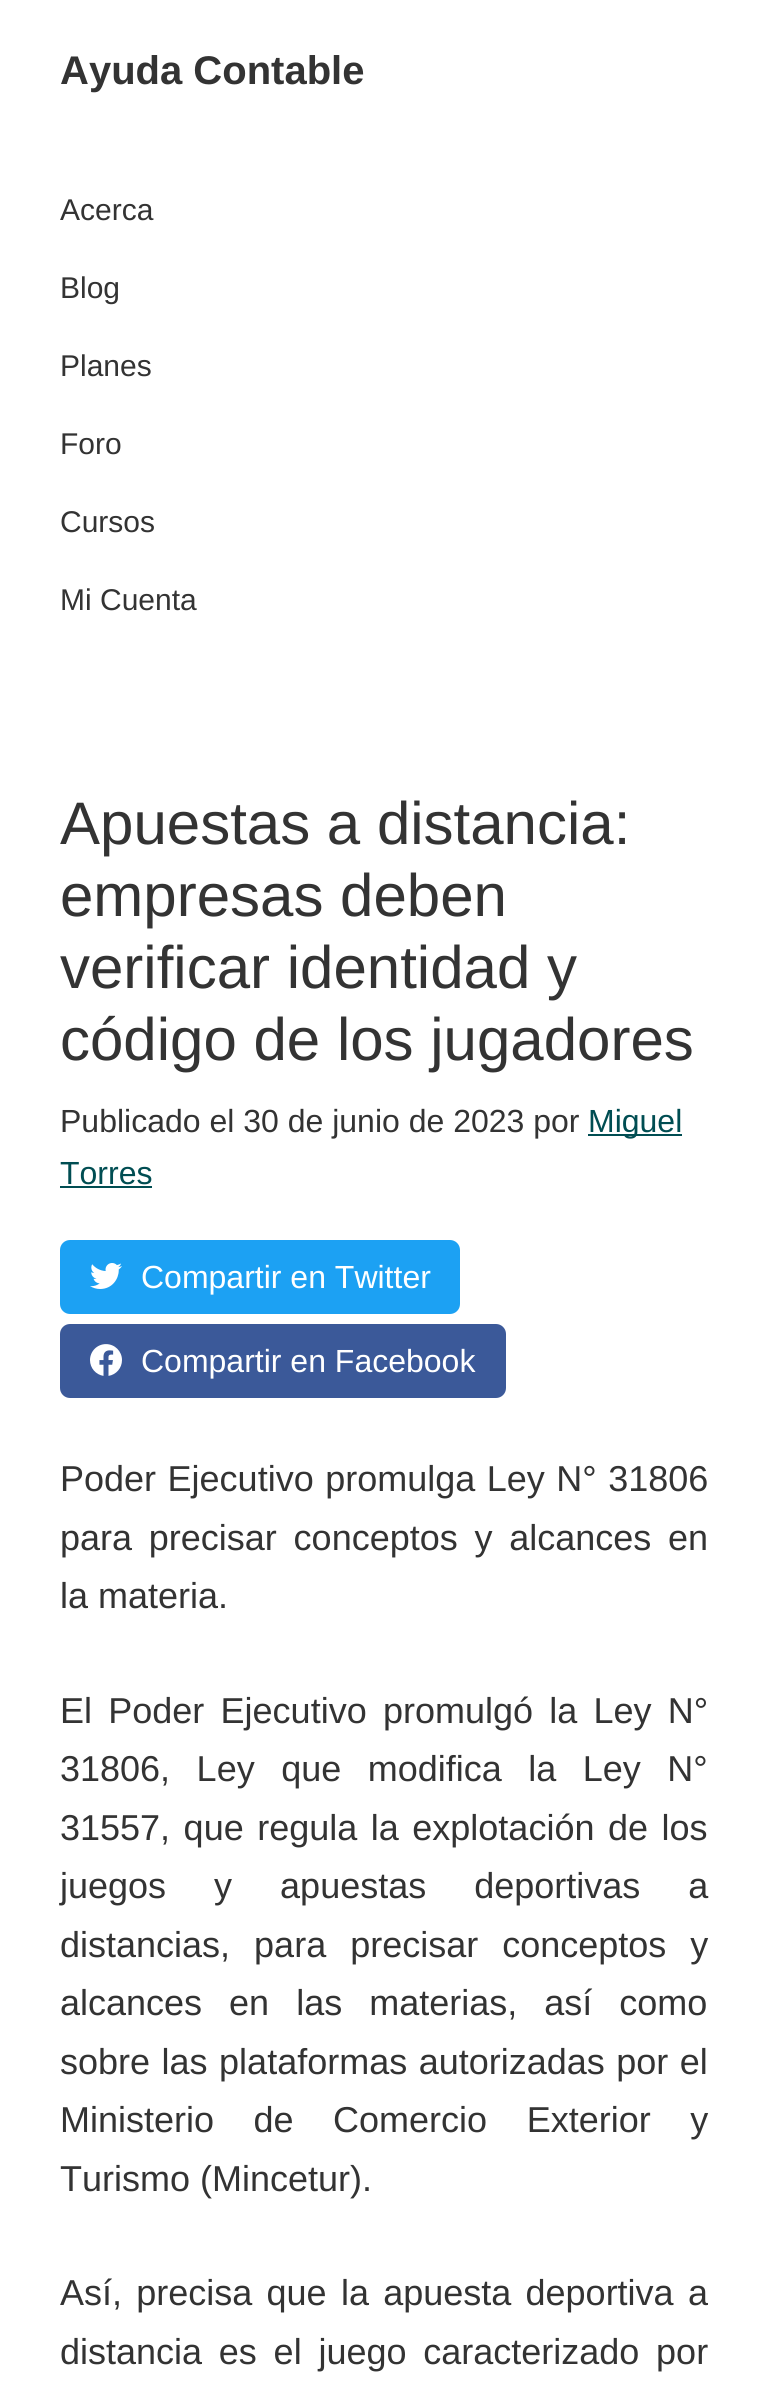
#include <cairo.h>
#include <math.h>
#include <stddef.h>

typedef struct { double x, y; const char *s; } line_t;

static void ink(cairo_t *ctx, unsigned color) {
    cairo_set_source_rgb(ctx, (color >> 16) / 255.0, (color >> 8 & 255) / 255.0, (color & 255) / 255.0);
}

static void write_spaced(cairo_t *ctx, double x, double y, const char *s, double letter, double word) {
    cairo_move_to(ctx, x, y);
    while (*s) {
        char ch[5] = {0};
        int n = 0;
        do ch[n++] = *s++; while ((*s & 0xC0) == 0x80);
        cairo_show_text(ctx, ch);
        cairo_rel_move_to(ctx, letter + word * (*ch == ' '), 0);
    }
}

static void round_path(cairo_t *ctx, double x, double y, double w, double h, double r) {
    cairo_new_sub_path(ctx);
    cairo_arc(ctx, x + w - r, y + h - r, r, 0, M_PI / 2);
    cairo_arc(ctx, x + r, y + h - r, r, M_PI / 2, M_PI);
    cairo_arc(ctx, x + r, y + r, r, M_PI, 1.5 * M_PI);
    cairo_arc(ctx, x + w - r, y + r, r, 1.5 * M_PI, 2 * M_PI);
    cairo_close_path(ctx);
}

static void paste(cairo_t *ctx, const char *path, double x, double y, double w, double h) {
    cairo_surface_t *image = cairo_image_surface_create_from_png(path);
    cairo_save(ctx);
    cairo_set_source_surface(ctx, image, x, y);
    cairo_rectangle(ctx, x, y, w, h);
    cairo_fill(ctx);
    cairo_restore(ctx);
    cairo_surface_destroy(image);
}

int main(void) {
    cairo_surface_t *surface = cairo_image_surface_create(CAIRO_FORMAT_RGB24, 768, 2401);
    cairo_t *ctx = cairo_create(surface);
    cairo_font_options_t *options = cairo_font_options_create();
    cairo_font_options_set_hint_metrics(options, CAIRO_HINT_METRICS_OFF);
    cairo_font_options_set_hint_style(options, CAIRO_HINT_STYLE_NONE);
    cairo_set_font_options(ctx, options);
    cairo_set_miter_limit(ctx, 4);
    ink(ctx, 0xFFFFFF);
    cairo_paint(ctx);
    cairo_select_font_face(ctx, "Liberation Sans", CAIRO_FONT_SLANT_NORMAL, CAIRO_FONT_WEIGHT_BOLD);
    cairo_set_font_size(ctx, 40);
    ink(ctx, 0x333333);
    cairo_move_to(ctx, 60, 84);
    cairo_show_text(ctx, "Ayuda Contable");
    cairo_select_font_face(ctx, "Liberation Sans", CAIRO_FONT_SLANT_NORMAL, CAIRO_FONT_WEIGHT_NORMAL);
    cairo_set_font_size(ctx, 30);
    {
        static const line_t items[] = {
            {60, 220, "Acerca"},
            {60, 298, "Blog"},
            {60, 376, "Planes"},
            {60, 454, "Foro"},
            {60, 532, "Cursos"},
            {60, 610, "Mi Cuenta"},
        };
        for (size_t i = 0; i < sizeof items / sizeof *items; i++) {
            cairo_move_to(ctx, items[i].x, items[i].y);
            cairo_show_text(ctx, items[i].s);
        }
    }
    cairo_set_font_size(ctx, 60);
    {
        static const line_t items[] = {
            {60, 844, "Apuestas a distancia:"},
            {60, 916, "empresas deben"},
            {60, 988, "verificar identidad y"},
            {60, 1060, "código de los jugadores"},
        };
        for (size_t i = 0; i < sizeof items / sizeof *items; i++) {
            cairo_move_to(ctx, items[i].x, items[i].y);
            cairo_show_text(ctx, items[i].s);
        }
    }
    cairo_set_font_size(ctx, 32);
    cairo_move_to(ctx, 60, 1132);
    cairo_show_text(ctx, "Publicado el 30 de junio de 2023 por");
    ink(ctx, 0x004D52);
    cairo_rectangle(ctx, 588, 1134, 94, 2);
    cairo_fill(ctx);
    cairo_move_to(ctx, 588, 1132);
    cairo_show_text(ctx, "Miguel");
    cairo_move_to(ctx, 60, 1184);
    cairo_show_text(ctx, "Torres");
    cairo_rectangle(ctx, 60, 1186, 92, 2);
    cairo_fill(ctx);
    ink(ctx, 0x1CA1F3);
    round_path(ctx, 60, 1240, 400, 74, 10);
    cairo_fill(ctx);
    paste(ctx, "media/1.png", 90, 1263, 32, 26);
    ink(ctx, 0xFFFFFF);
    cairo_move_to(ctx, 141, 1288);
    cairo_show_text(ctx, "Compartir en Twitter");
    ink(ctx, 0x3B5999);
    round_path(ctx, 60, 1324, 446, 74, 10);
    cairo_fill(ctx);
    paste(ctx, "media/2.png", 90, 1344, 32, 32);
    ink(ctx, 0xFFFFFF);
    cairo_move_to(ctx, 141, 1372);
    cairo_show_text(ctx, "Compartir en Facebook");
    cairo_set_font_size(ctx, 36);
    ink(ctx, 0x333333);
    write_spaced(ctx, 60, 1491, "Poder Ejecutivo promulga Ley N° 31806", 0, 1.5);
    write_spaced(ctx, 60, 1550, "para precisar conceptos y alcances en", 0, 6.75);
    cairo_move_to(ctx, 60, 1608);
    cairo_show_text(ctx, "la materia.");
    write_spaced(ctx, 60, 1723, "El Poder Ejecutivo promulgó la Ley N°", 0, 6.25);
    write_spaced(ctx, 60, 1781, "31806, Ley que modifica la Ley N°", 0, 16.5);
    write_spaced(ctx, 60, 1840, "31557, que regula la explotación de los", 0, 3.5);
    write_spaced(ctx, 60, 1898, "juegos y apuestas deportivas a", 0, 38);
    write_spaced(ctx, 60, 1957, "distancias, para precisar conceptos y", 0, 14);
    write_spaced(ctx, 60, 2015, "alcances en las materias, así como", 0, 17);
    write_spaced(ctx, 60, 2074, "sobre las plataformas autorizadas por el", 0, 1.5);
    write_spaced(ctx, 60, 2132, "Ministerio de Comercio Exterior y", 0, 29.5);
    cairo_move_to(ctx, 60, 2191);
    cairo_show_text(ctx, "Turismo (Mincetur).");
    write_spaced(ctx, 60, 2305, "Así, precisa que la apuesta deportiva a", 0, 4.25);
    write_spaced(ctx, 60, 2364, "distancia es el juego caracterizado por", 0, 6.75);
    cairo_surface_write_to_png(surface, "image.png");
    cairo_font_options_destroy(options);
    cairo_destroy(ctx);
    cairo_surface_destroy(surface);
    return 0;
}
